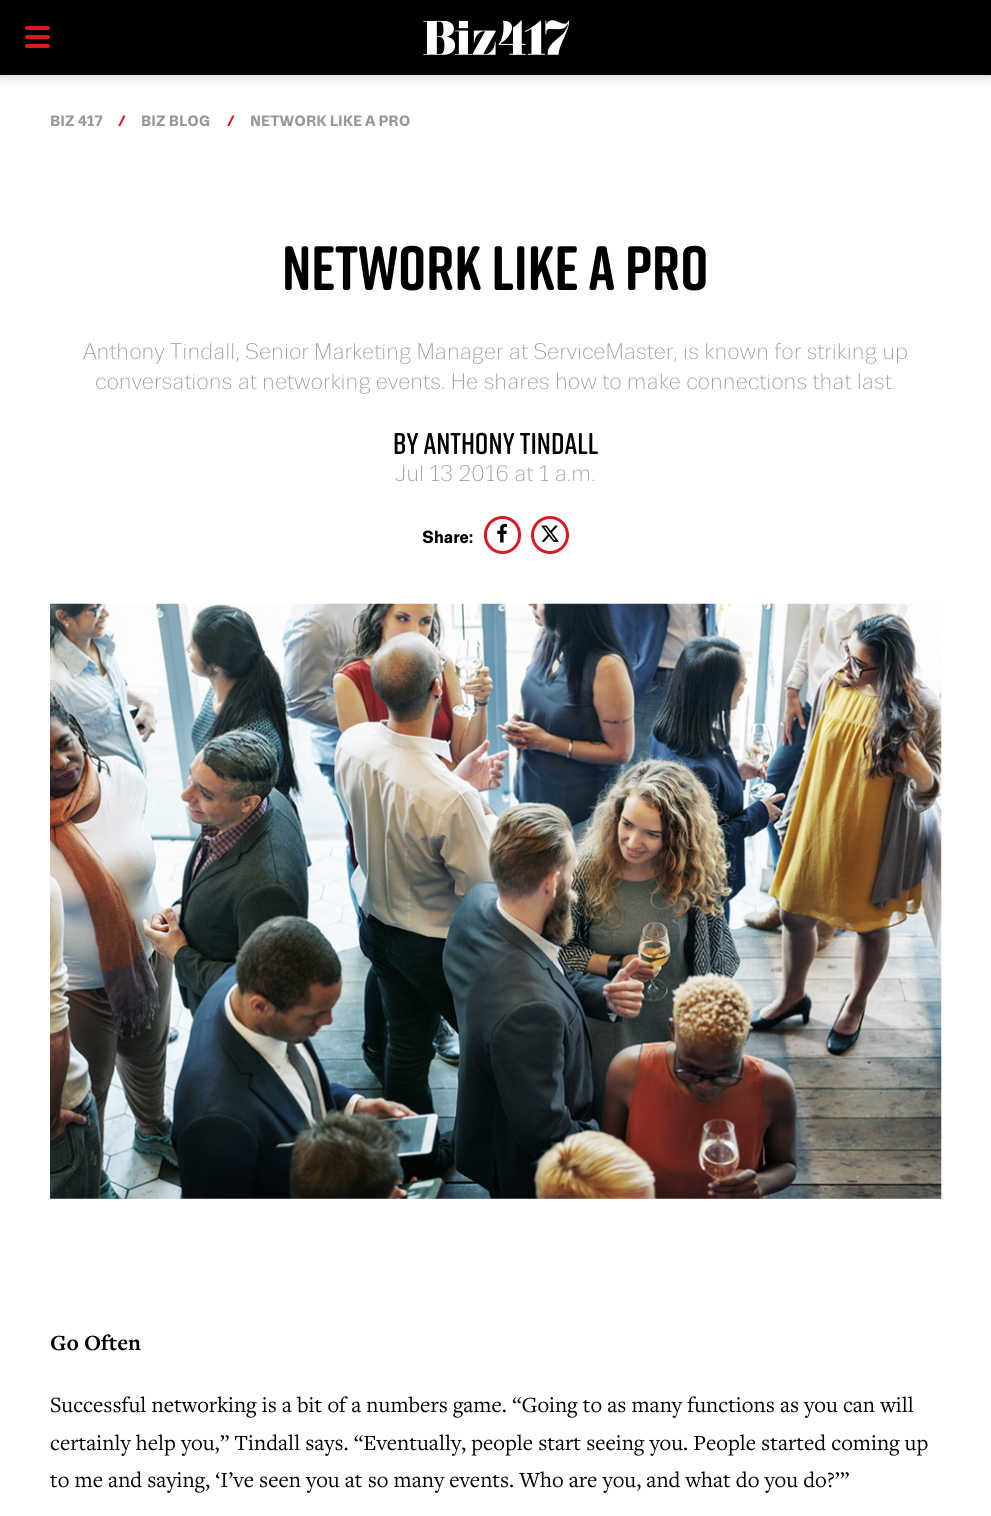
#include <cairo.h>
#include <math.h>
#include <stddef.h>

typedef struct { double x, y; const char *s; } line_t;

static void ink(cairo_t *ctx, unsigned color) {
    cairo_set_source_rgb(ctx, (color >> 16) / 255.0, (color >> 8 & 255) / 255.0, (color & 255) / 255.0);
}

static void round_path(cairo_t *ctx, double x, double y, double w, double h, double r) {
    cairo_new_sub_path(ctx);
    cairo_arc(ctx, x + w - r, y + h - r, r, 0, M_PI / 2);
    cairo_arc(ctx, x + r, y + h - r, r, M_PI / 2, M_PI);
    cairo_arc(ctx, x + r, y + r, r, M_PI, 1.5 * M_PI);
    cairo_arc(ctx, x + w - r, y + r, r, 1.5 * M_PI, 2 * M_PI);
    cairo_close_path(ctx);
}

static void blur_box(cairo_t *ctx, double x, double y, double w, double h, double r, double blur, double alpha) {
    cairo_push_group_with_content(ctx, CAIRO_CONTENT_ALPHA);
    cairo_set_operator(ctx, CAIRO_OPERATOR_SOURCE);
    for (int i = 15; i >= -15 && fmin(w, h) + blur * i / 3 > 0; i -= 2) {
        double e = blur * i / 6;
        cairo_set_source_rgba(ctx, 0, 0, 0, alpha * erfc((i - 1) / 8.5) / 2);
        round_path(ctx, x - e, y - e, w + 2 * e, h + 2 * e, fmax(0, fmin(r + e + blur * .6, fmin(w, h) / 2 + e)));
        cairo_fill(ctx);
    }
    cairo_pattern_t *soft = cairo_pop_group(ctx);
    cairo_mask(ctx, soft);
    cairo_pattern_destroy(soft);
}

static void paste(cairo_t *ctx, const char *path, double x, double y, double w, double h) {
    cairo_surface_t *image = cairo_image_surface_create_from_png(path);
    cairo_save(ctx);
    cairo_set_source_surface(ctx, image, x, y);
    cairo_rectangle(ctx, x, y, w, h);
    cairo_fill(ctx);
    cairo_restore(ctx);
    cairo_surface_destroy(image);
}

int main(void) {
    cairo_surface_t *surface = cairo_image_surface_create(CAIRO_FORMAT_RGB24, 991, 1516);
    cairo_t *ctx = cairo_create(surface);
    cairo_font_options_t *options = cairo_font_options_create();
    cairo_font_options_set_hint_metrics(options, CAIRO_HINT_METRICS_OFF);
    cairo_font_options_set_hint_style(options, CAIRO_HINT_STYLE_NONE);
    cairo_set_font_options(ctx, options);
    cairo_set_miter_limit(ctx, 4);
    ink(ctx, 0xFFFFFF);
    cairo_paint(ctx);
    ink(ctx, 0x000000);
    blur_box(ctx, 0, 0, 991, 75, 0, 6, 0.25);
    ink(ctx, 0x000000);
    cairo_rectangle(ctx, 0, 0, 991, 75);
    cairo_fill(ctx);
    ink(ctx, 0xD71921);
    round_path(ctx, 25, 35, 25, 4, 2);
    cairo_fill(ctx);
    round_path(ctx, 25, 26, 25, 4, 2);
    cairo_fill(ctx);
    round_path(ctx, 25, 44, 25, 4, 2);
    cairo_fill(ctx);
    paste(ctx, "media/1.png", 423, 20, 146, 35);
    cairo_select_font_face(ctx, "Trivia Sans", CAIRO_FONT_SLANT_NORMAL, CAIRO_FONT_WEIGHT_BOLD);
    cairo_set_font_size(ctx, 15);
    ink(ctx, 0x979797);
    cairo_move_to(ctx, 50, 126);
    cairo_show_text(ctx, "BIZ 417");
    ink(ctx, 0xD71921);
    cairo_move_to(ctx, 118, 126);
    cairo_show_text(ctx, "/");
    ink(ctx, 0x979797);
    cairo_move_to(ctx, 141, 126);
    cairo_show_text(ctx, "BIZ BLOG");
    ink(ctx, 0xD71921);
    cairo_move_to(ctx, 227, 126);
    cairo_show_text(ctx, "/");
    ink(ctx, 0x979797);
    cairo_move_to(ctx, 250, 126);
    cairo_show_text(ctx, "NETWORK LIKE A PRO");
    cairo_select_font_face(ctx, "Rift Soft", CAIRO_FONT_SLANT_NORMAL, CAIRO_FONT_WEIGHT_BOLD);
    cairo_set_font_size(ctx, 62.5);
    ink(ctx, 0x000000);
    cairo_move_to(ctx, 282, 290);
    cairo_show_text(ctx, "NETWORK LIKE A PRO");
    cairo_select_font_face(ctx, "Trivia Sans Light", CAIRO_FONT_SLANT_NORMAL, CAIRO_FONT_WEIGHT_NORMAL);
    cairo_set_font_size(ctx, 22.5);
    ink(ctx, 0x979797);
    cairo_move_to(ctx, 83, 359);
    cairo_show_text(ctx, "Anthony Tindall, Senior Marketing Manager at ServiceMaster, is known for striking up");
    cairo_move_to(ctx, 95, 389);
    cairo_show_text(ctx, "conversations at networking events. He shares how to make connections that last.");
    cairo_select_font_face(ctx, "Rift Soft SemiBold", CAIRO_FONT_SLANT_NORMAL, CAIRO_FONT_WEIGHT_NORMAL);
    cairo_set_font_size(ctx, 30);
    ink(ctx, 0x000000);
    cairo_move_to(ctx, 393, 454);
    cairo_show_text(ctx, "By Anthony Tindall");
    cairo_select_font_face(ctx, "Trivia Sans Light", CAIRO_FONT_SLANT_NORMAL, CAIRO_FONT_WEIGHT_NORMAL);
    cairo_set_font_size(ctx, 22.5);
    ink(ctx, 0x979797);
    cairo_move_to(ctx, 395, 481);
    cairo_show_text(ctx, "Jul 13 2016 at 1 a.m.");
    cairo_select_font_face(ctx, "Trivia Sans", CAIRO_FONT_SLANT_NORMAL, CAIRO_FONT_WEIGHT_BOLD);
    cairo_set_font_size(ctx, 17.5);
    ink(ctx, 0x000000);
    cairo_move_to(ctx, 422, 543);
    cairo_show_text(ctx, "Share:");
    round_path(ctx, 485.5, 517.5, 34, 35, 17);
    ink(ctx, 0xD71921);
    cairo_set_line_width(ctx, 3);
    cairo_stroke(ctx);
    paste(ctx, "media/2.png", 497, 523, 10, 20);
    cairo_arc(ctx, 550, 535, 17.5, 0, 2 * M_PI);
    cairo_stroke(ctx);
    paste(ctx, "media/3.png", 541, 525, 18, 17);
    paste(ctx, "media/4.png", 50, 603, 892, 596);
    cairo_select_font_face(ctx, "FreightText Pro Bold", CAIRO_FONT_SLANT_NORMAL, CAIRO_FONT_WEIGHT_BOLD);
    cairo_set_font_size(ctx, 22.5);
    ink(ctx, 0x000000);
    cairo_move_to(ctx, 50, 1350);
    cairo_show_text(ctx, "Go Often");
    cairo_select_font_face(ctx, "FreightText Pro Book", CAIRO_FONT_SLANT_NORMAL, CAIRO_FONT_WEIGHT_NORMAL);
    {
        static const line_t items[] = {
            {50, 1412, "Successful networking is a bit of a numbers game. “Going to as many functions as you can will"},
            {50, 1450, "certainly help you,” Tindall says. “Eventually, people start seeing you. People started coming up"},
            {50, 1487, "to me and saying, ‘I’ve seen you at so many events. Who are you, and what do you do?’”"},
        };
        for (size_t i = 0; i < sizeof items / sizeof *items; i++) {
            cairo_move_to(ctx, items[i].x, items[i].y);
            cairo_show_text(ctx, items[i].s);
        }
    }
    cairo_surface_write_to_png(surface, "image.png");
    cairo_font_options_destroy(options);
    cairo_destroy(ctx);
    cairo_surface_destroy(surface);
    return 0;
}
